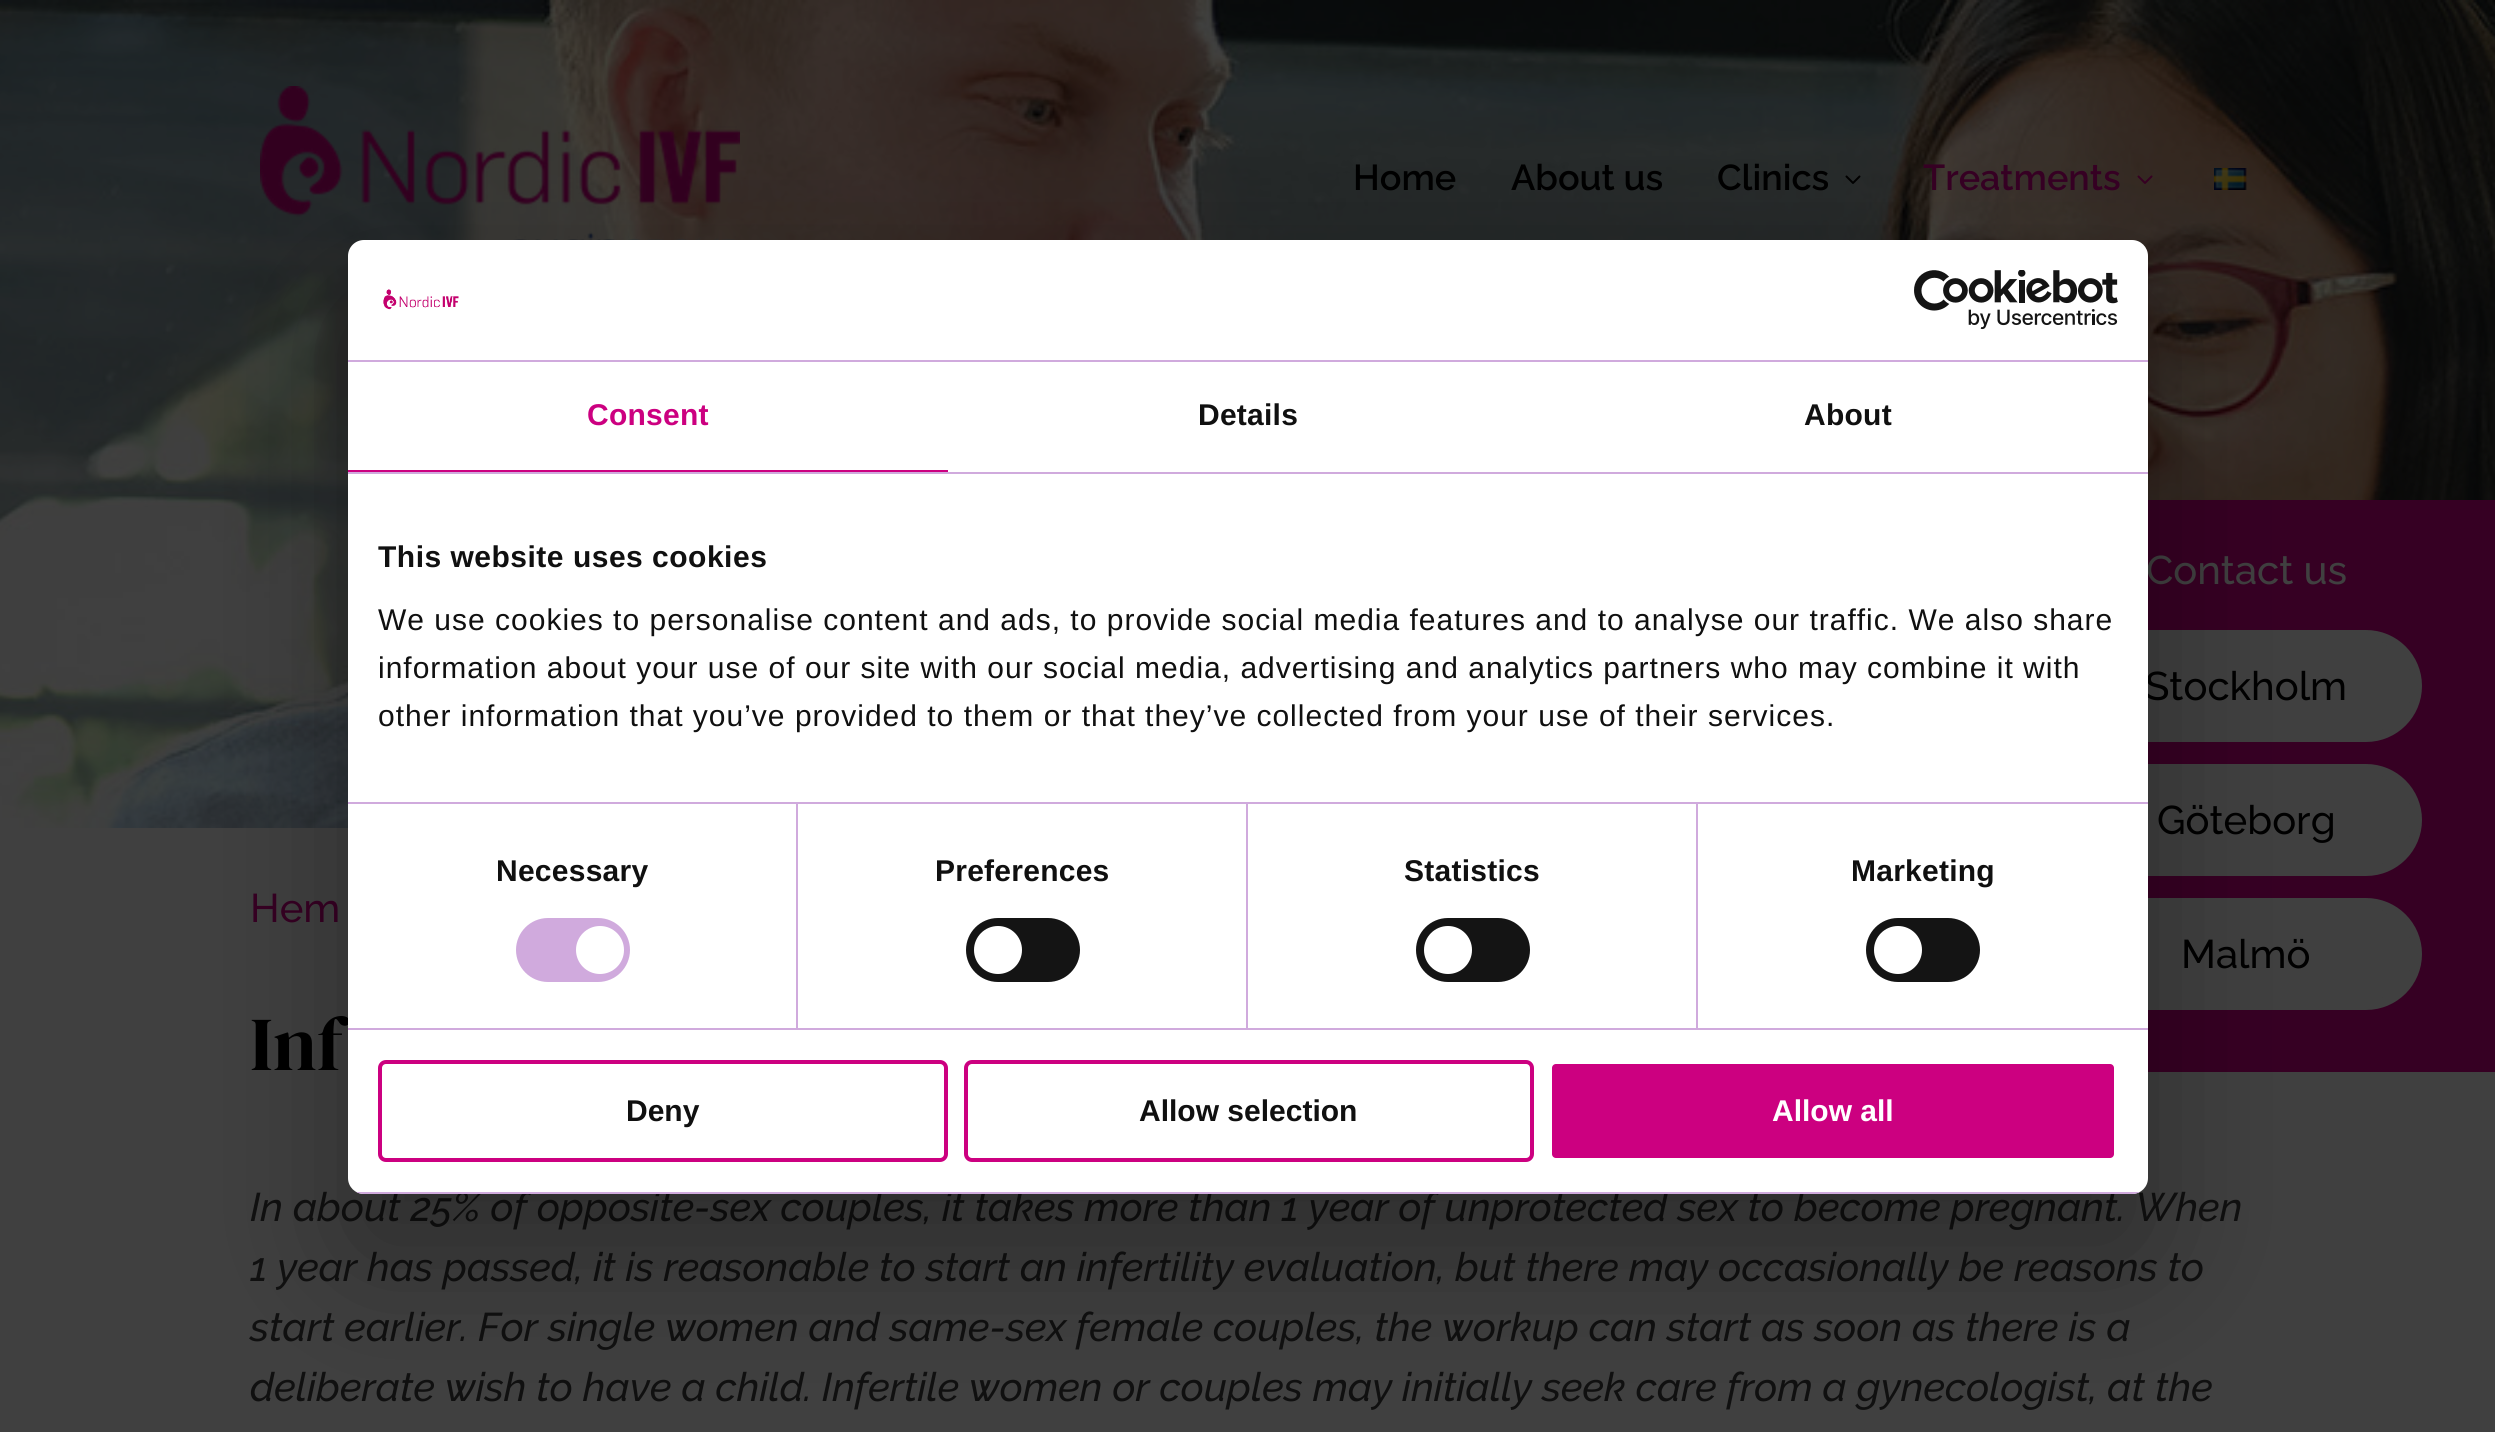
#include <cairo.h>
#include <math.h>
#include <stddef.h>

typedef struct { double x, y; const char *s; } line_t;

static void ink(cairo_t *ctx, unsigned color) {
    cairo_set_source_rgb(ctx, (color >> 16) / 255.0, (color >> 8 & 255) / 255.0, (color & 255) / 255.0);
}

static void write_spaced(cairo_t *ctx, double x, double y, const char *s, double letter, double word) {
    cairo_move_to(ctx, x, y);
    while (*s) {
        char ch[5] = {0};
        int n = 0;
        do ch[n++] = *s++; while ((*s & 0xC0) == 0x80);
        cairo_show_text(ctx, ch);
        cairo_rel_move_to(ctx, letter + word * (*ch == ' '), 0);
    }
}

static void round_path(cairo_t *ctx, double x, double y, double w, double h, double r) {
    cairo_new_sub_path(ctx);
    cairo_arc(ctx, x + w - r, y + h - r, r, 0, M_PI / 2);
    cairo_arc(ctx, x + r, y + h - r, r, M_PI / 2, M_PI);
    cairo_arc(ctx, x + r, y + r, r, M_PI, 1.5 * M_PI);
    cairo_arc(ctx, x + w - r, y + r, r, 1.5 * M_PI, 2 * M_PI);
    cairo_close_path(ctx);
}

static void blur_box(cairo_t *ctx, double x, double y, double w, double h, double r, double blur, double alpha) {
    cairo_push_group_with_content(ctx, CAIRO_CONTENT_ALPHA);
    cairo_set_operator(ctx, CAIRO_OPERATOR_SOURCE);
    for (int i = 15; i >= -15 && fmin(w, h) + blur * i / 3 > 0; i -= 2) {
        double e = blur * i / 6;
        cairo_set_source_rgba(ctx, 0, 0, 0, alpha * erfc((i - 1) / 8.5) / 2);
        round_path(ctx, x - e, y - e, w + 2 * e, h + 2 * e, fmax(0, fmin(r + e + blur * .6, fmin(w, h) / 2 + e)));
        cairo_fill(ctx);
    }
    cairo_pattern_t *soft = cairo_pop_group(ctx);
    cairo_mask(ctx, soft);
    cairo_pattern_destroy(soft);
}

static void paste(cairo_t *ctx, const char *path, double x, double y, double w, double h) {
    cairo_surface_t *image = cairo_image_surface_create_from_png(path);
    cairo_save(ctx);
    cairo_set_source_surface(ctx, image, x, y);
    cairo_rectangle(ctx, x, y, w, h);
    cairo_fill(ctx);
    cairo_restore(ctx);
    cairo_surface_destroy(image);
}

int main(void) {
    cairo_surface_t *surface = cairo_image_surface_create(CAIRO_FORMAT_RGB24, 2495, 1432);
    cairo_t *ctx = cairo_create(surface);
    cairo_font_options_t *options = cairo_font_options_create();
    cairo_font_options_set_hint_metrics(options, CAIRO_HINT_METRICS_OFF);
    cairo_font_options_set_hint_style(options, CAIRO_HINT_STYLE_NONE);
    cairo_set_font_options(ctx, options);
    cairo_set_miter_limit(ctx, 4);
    ink(ctx, 0x404040);
    cairo_paint(ctx);
    paste(ctx, "media/5.png", 0, 0, 2495, 828);
    paste(ctx, "media/1.png", 260, 86, 480, 154);
    cairo_select_font_face(ctx, "Raleway SemiBold", CAIRO_FONT_SLANT_NORMAL, CAIRO_FONT_WEIGHT_NORMAL);
    cairo_set_font_size(ctx, 36);
    ink(ctx, 0x000000);
    {
        static const line_t items[] = {
            {1353, 190, "Home"},
            {1511, 190, "About us"},
            {1717, 190, "Clinics"},
        };
        for (size_t i = 0; i < sizeof items / sizeof *items; i++) {
            cairo_move_to(ctx, items[i].x, items[i].y);
            cairo_show_text(ctx, items[i].s);
        }
    }
    paste(ctx, "media/2.png", 1845, 175, 16, 9);
    ink(ctx, 0x360023);
    cairo_move_to(ctx, 1923, 190);
    cairo_show_text(ctx, "Treatments");
    paste(ctx, "media/3.png", 2137, 175, 16, 9);
    paste(ctx, "media/4.png", 2214, 168, 33, 22);
    cairo_select_font_face(ctx, "Raleway Medium", CAIRO_FONT_SLANT_NORMAL, CAIRO_FONT_WEIGHT_NORMAL);
    cairo_set_font_size(ctx, 40);
    cairo_move_to(ctx, 250, 922);
    cairo_show_text(ctx, "Hem");
    cairo_rectangle(ctx, 2148, 500, 347, 572);
    cairo_fill(ctx);
    ink(ctx, 0x404040);
    cairo_move_to(ctx, 2146, 584);
    cairo_show_text(ctx, "Contact us");
    round_path(ctx, 2077, 635, 340, 102, 51);
    cairo_fill_preserve(ctx);
    cairo_set_line_width(ctx, 10);
    cairo_stroke(ctx);
    ink(ctx, 0x000000);
    cairo_move_to(ctx, 2145, 700);
    cairo_show_text(ctx, "Stockholm");
    ink(ctx, 0x404040);
    round_path(ctx, 2077, 769, 340, 102, 51);
    cairo_fill_preserve(ctx);
    cairo_stroke(ctx);
    ink(ctx, 0x000000);
    cairo_move_to(ctx, 2157, 834);
    cairo_show_text(ctx, "Göteborg");
    ink(ctx, 0x404040);
    round_path(ctx, 2077, 903, 340, 102, 51);
    cairo_fill_preserve(ctx);
    cairo_stroke(ctx);
    ink(ctx, 0x000000);
    cairo_move_to(ctx, 2181, 968);
    cairo_show_text(ctx, "Malmö");
    cairo_select_font_face(ctx, "DM Serif Display", CAIRO_FONT_SLANT_NORMAL, CAIRO_FONT_WEIGHT_NORMAL);
    cairo_set_font_size(ctx, 76);
    cairo_move_to(ctx, 250, 1070);
    cairo_show_text(ctx, "Inf");
    cairo_select_font_face(ctx, "Raleway Medium", CAIRO_FONT_SLANT_ITALIC, CAIRO_FONT_WEIGHT_NORMAL);
    cairo_set_font_size(ctx, 40);
    ink(ctx, 0x101010);
    {
        static const line_t items[] = {
            {250, 1221, "In about 25% of opposite-sex couples, it takes more than 1 year of unprotected sex to become pregnant. When"},
            {250, 1281, "1 year has passed, it is reasonable to start an infertility evaluation, but there may occasionally be reasons to"},
            {250, 1341, "start earlier. For single women and same-sex female couples, the workup can start as soon as there is a"},
            {250, 1401, "deliberate wish to have a child. Infertile women or couples may initially seek care from a gynecologist, at the"},
        };
        for (size_t i = 0; i < sizeof items / sizeof *items; i++) {
            cairo_move_to(ctx, items[i].x, items[i].y);
            cairo_show_text(ctx, items[i].s);
        }
    }
    ink(ctx, 0x000000);
    blur_box(ctx, 348, 304, 1800, 954, 16, 68, 0.3);
    ink(ctx, 0xFFFFFF);
    round_path(ctx, 348, 240, 1800, 954, 16);
    cairo_fill(ctx);
    ink(ctx, 0xD0AADD);
    cairo_rectangle(ctx, 348, 360, 1800, 2);
    cairo_fill(ctx);
    paste(ctx, "media/6.png", 383, 289, 76, 21);
    paste(ctx, "media/7.png", 1914, 270, 204, 60);
    cairo_rectangle(ctx, 348, 472, 1800, 2);
    cairo_fill(ctx);
    ink(ctx, 0xCC0080);
    cairo_rectangle(ctx, 348, 470, 600, 2);
    cairo_fill(ctx);
    cairo_select_font_face(ctx, "Liberation Sans", CAIRO_FONT_SLANT_NORMAL, CAIRO_FONT_WEIGHT_BOLD);
    cairo_set_font_size(ctx, 30);
    write_spaced(ctx, 587, 425, "Consent", 0.25, 0);
    ink(ctx, 0x101010);
    write_spaced(ctx, 1198, 425, "Details", 0.25, 0);
    write_spaced(ctx, 1804, 425, "About", 0.25, 0);
    ink(ctx, 0xD0AADD);
    cairo_rectangle(ctx, 348, 802, 1800, 2);
    cairo_fill(ctx);
    ink(ctx, 0x101010);
    write_spaced(ctx, 378, 567, "This website uses cookies", 0.5, 0);
    cairo_select_font_face(ctx, "Liberation Sans", CAIRO_FONT_SLANT_NORMAL, CAIRO_FONT_WEIGHT_NORMAL);
    {
        static const line_t items[] = {
            {378, 630, "We use cookies to personalise content and ads, to provide social media features and to analyse our traffic. We also share"},
            {378, 678, "information about your use of our site with our social media, advertising and analytics partners who may combine it with"},
            {378, 726, "other information that you’ve provided to them or that they’ve collected from your use of their services."},
        };
        for (size_t i = 0; i < sizeof items / sizeof *items; i++) {
            write_spaced(ctx, items[i].x, items[i].y, items[i].s, 1, 0);
        }
    }
    ink(ctx, 0xD0AADD);
    cairo_rectangle(ctx, 348, 1028, 1800, 2);
    cairo_fill(ctx);
    cairo_rectangle(ctx, 796, 804, 2, 224);
    cairo_fill(ctx);
    cairo_select_font_face(ctx, "Liberation Sans", CAIRO_FONT_SLANT_NORMAL, CAIRO_FONT_WEIGHT_BOLD);
    ink(ctx, 0x101010);
    write_spaced(ctx, 496, 881, "Necessary", 0.25, 0);
    ink(ctx, 0xD0AADD);
    round_path(ctx, 516, 918, 114, 64, 32);
    cairo_fill(ctx);
    ink(ctx, 0xFFFFFF);
    cairo_arc(ctx, 600, 950, 24, 0, 2 * M_PI);
    cairo_fill(ctx);
    ink(ctx, 0xD0AADD);
    cairo_rectangle(ctx, 1246, 804, 2, 224);
    cairo_fill(ctx);
    ink(ctx, 0x101010);
    write_spaced(ctx, 935, 881, "Preferences", 0.25, 0);
    ink(ctx, 0x141414);
    round_path(ctx, 966, 918, 114, 64, 32);
    cairo_fill(ctx);
    ink(ctx, 0xFFFFFF);
    cairo_arc(ctx, 998, 950, 24, 0, 2 * M_PI);
    cairo_fill(ctx);
    ink(ctx, 0xD0AADD);
    cairo_rectangle(ctx, 1696, 804, 2, 224);
    cairo_fill(ctx);
    ink(ctx, 0x101010);
    write_spaced(ctx, 1404, 881, "Statistics", 0.25, 0);
    ink(ctx, 0x141414);
    round_path(ctx, 1416, 918, 114, 64, 32);
    cairo_fill(ctx);
    ink(ctx, 0xFFFFFF);
    cairo_arc(ctx, 1448, 950, 24, 0, 2 * M_PI);
    cairo_fill(ctx);
    ink(ctx, 0x101010);
    write_spaced(ctx, 1851, 881, "Marketing", 0.25, 0);
    ink(ctx, 0x141414);
    round_path(ctx, 1866, 918, 114, 64, 32);
    cairo_fill(ctx);
    ink(ctx, 0xFFFFFF);
    cairo_arc(ctx, 1898, 950, 24, 0, 2 * M_PI);
    cairo_fill(ctx);
    cairo_save(ctx);
    round_path(ctx, 348, 240, 1800, 954, 16);
    cairo_clip(ctx);
    ink(ctx, 0xD0AADD);
    cairo_rectangle(ctx, 348, 1192, 1800, 2);
    cairo_fill(ctx);
    cairo_restore(ctx);
    round_path(ctx, 380, 1062, 566, 98, 6);
    ink(ctx, 0xCC0080);
    cairo_set_line_width(ctx, 4);
    cairo_stroke(ctx);
    ink(ctx, 0x101010);
    cairo_move_to(ctx, 626, 1121);
    cairo_show_text(ctx, "Deny");
    round_path(ctx, 966, 1062, 566, 98, 6);
    ink(ctx, 0xCC0080);
    cairo_stroke(ctx);
    ink(ctx, 0x101010);
    cairo_move_to(ctx, 1139, 1121);
    cairo_show_text(ctx, "Allow selection");
    ink(ctx, 0xCC0080);
    round_path(ctx, 1550, 1062, 566, 98, 6);
    cairo_fill_preserve(ctx);
    ink(ctx, 0xFFFFFF);
    cairo_stroke(ctx);
    cairo_move_to(ctx, 1772, 1121);
    cairo_show_text(ctx, "Allow all");
    cairo_surface_write_to_png(surface, "image.png");
    cairo_font_options_destroy(options);
    cairo_destroy(ctx);
    cairo_surface_destroy(surface);
    return 0;
}
